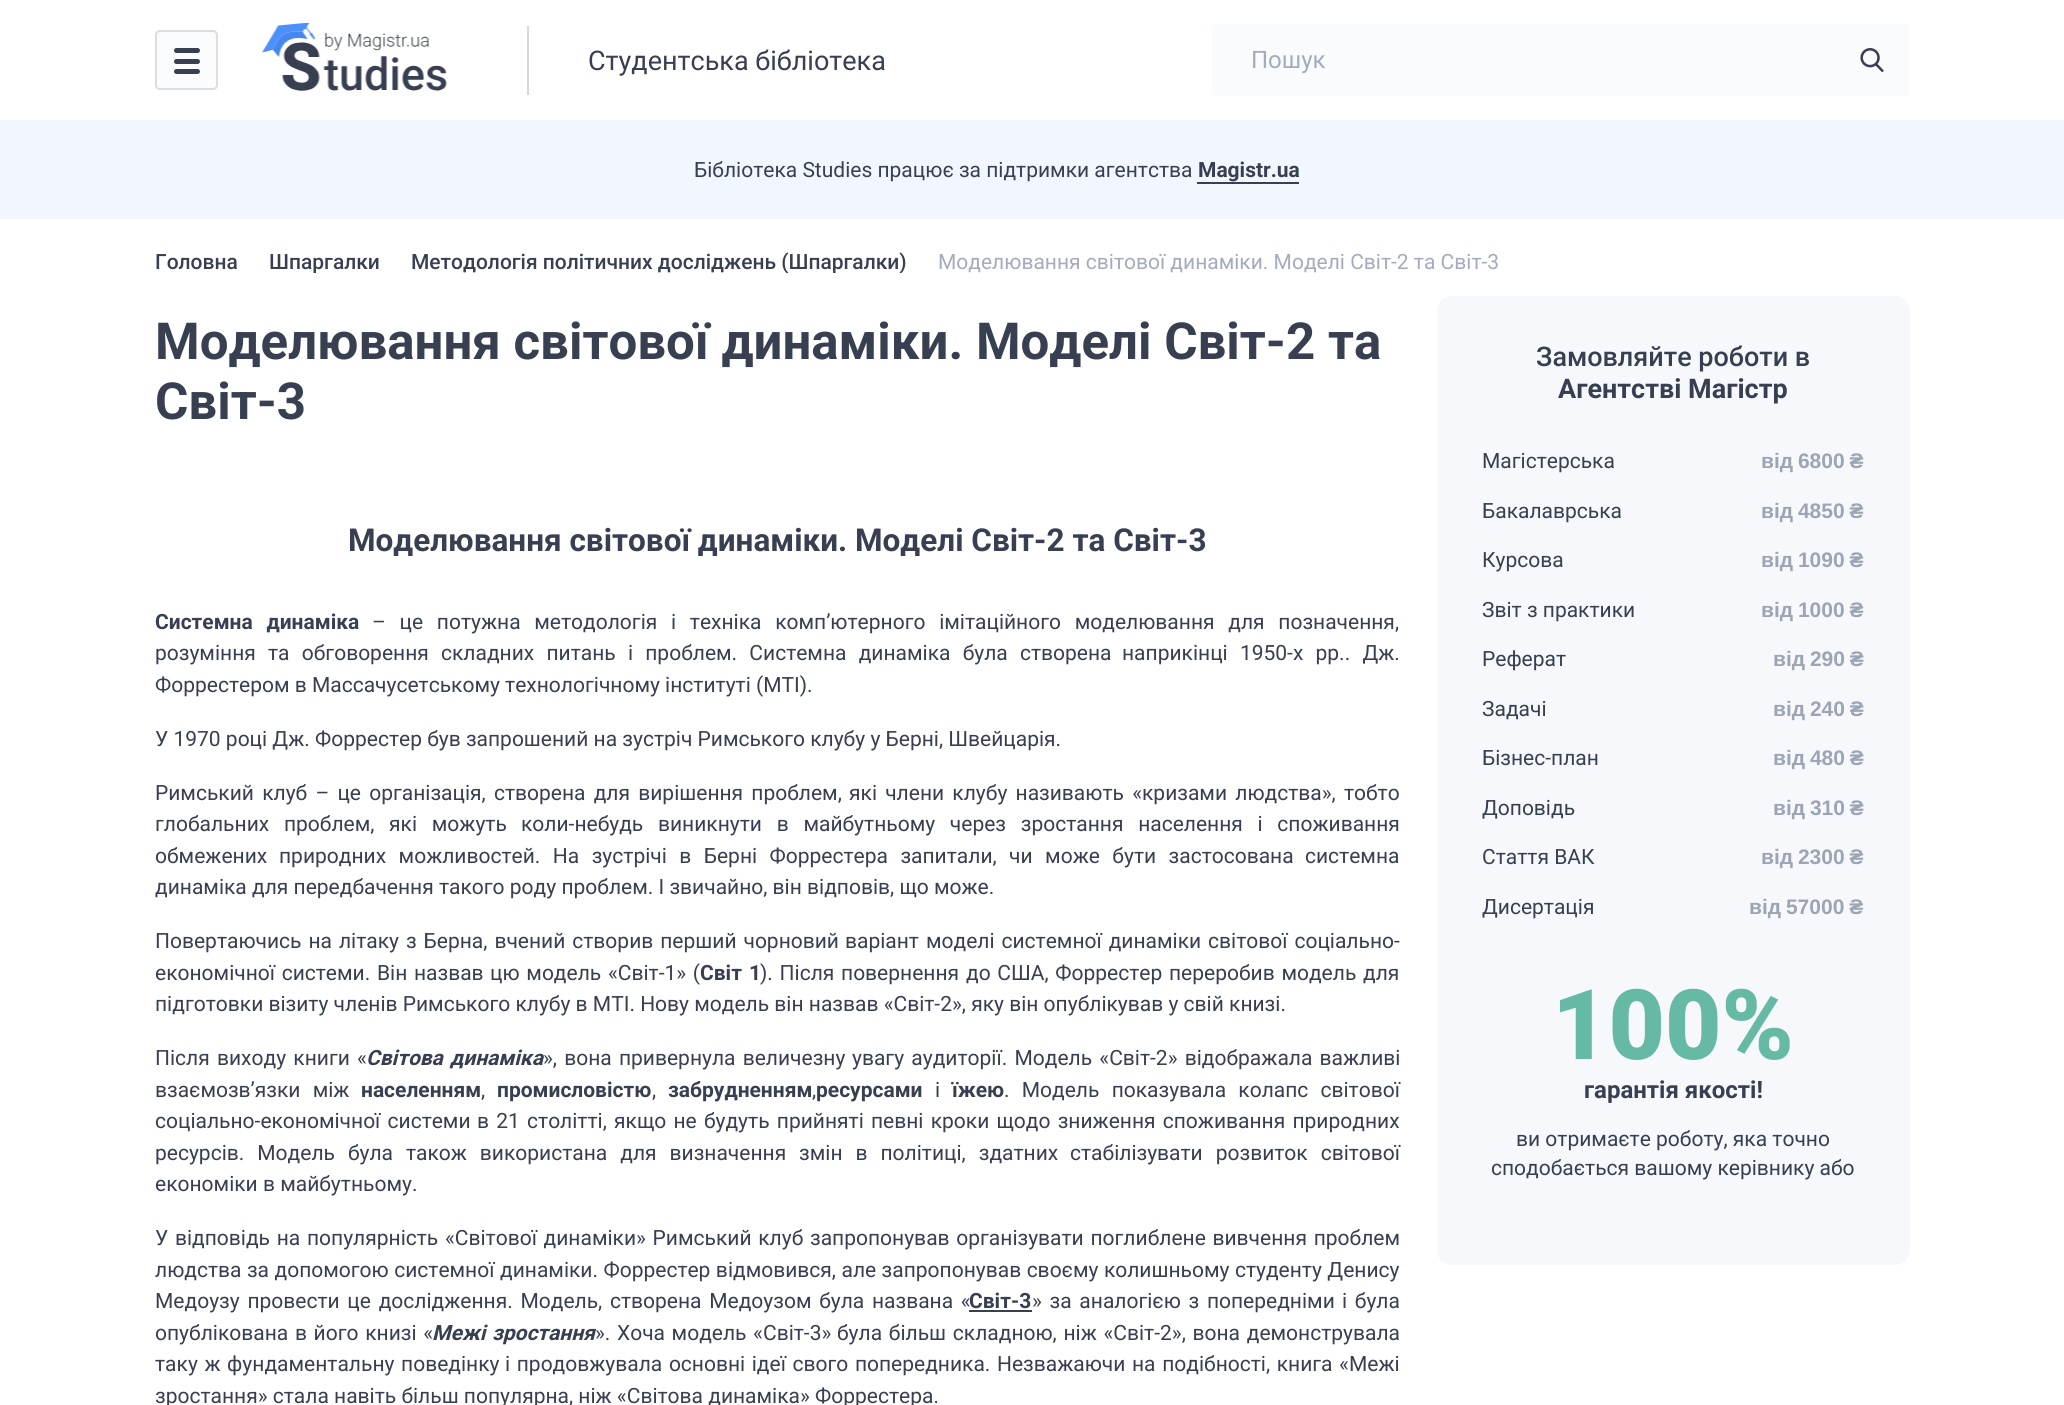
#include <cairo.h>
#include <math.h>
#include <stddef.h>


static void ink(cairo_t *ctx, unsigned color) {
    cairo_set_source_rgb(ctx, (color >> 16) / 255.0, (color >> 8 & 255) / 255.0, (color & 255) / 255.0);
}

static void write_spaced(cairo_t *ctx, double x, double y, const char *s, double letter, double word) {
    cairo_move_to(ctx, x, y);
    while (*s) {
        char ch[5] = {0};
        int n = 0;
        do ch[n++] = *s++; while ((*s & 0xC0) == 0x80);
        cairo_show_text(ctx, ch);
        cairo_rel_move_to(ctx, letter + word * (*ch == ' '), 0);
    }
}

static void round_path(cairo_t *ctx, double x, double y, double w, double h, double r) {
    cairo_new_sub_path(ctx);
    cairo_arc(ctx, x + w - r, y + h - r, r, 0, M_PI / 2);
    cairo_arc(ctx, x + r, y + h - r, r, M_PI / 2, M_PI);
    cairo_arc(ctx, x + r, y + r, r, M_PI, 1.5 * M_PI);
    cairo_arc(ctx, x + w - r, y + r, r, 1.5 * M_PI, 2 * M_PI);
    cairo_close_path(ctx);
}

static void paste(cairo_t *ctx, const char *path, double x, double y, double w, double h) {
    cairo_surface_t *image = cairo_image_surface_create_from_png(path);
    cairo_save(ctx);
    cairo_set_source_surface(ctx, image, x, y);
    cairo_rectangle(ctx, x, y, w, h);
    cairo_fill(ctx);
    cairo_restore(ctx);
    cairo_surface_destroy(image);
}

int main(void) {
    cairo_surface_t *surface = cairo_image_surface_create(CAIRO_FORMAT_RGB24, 2064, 1405);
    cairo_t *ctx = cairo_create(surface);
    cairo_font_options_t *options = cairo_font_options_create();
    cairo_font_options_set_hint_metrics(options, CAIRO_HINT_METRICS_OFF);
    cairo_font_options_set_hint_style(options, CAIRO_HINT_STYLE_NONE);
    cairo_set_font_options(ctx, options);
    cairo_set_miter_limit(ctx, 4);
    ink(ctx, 0xFFFFFF);
    cairo_paint(ctx);
    ink(ctx, 0xFAFCFE);
    round_path(ctx, 156, 31, 61, 58, 4);
    cairo_fill_preserve(ctx);
    ink(ctx, 0xDADEE1);
    cairo_stroke(ctx);
    ink(ctx, 0x373F50);
    round_path(ctx, 174, 48, 26, 5, 2.5);
    cairo_fill(ctx);
    round_path(ctx, 174, 59, 26, 5, 2.5);
    cairo_fill(ctx);
    round_path(ctx, 174, 69, 26, 5, 2.5);
    cairo_fill(ctx);
    paste(ctx, "media/1.png", 262, 23, 185, 68);
    ink(ctx, 0xDDD5CF);
    cairo_rectangle(ctx, 527, 26, 2, 69);
    cairo_fill(ctx);
    cairo_select_font_face(ctx, "Roboto", CAIRO_FONT_SLANT_NORMAL, CAIRO_FONT_WEIGHT_NORMAL);
    cairo_set_font_size(ctx, 27);
    ink(ctx, 0x373F51);
    cairo_move_to(ctx, 588, 70);
    cairo_show_text(ctx, "Студентська бібліотека");
    ink(ctx, 0xF9FBFD);
    round_path(ctx, 1212, 24, 698, 72, 5);
    cairo_fill(ctx);
    cairo_set_font_size(ctx, 24);
    ink(ctx, 0xA3ABBE);
    cairo_move_to(ctx, 1251, 68);
    cairo_show_text(ctx, "Пошук");
    paste(ctx, "media/2.png", 1860, 48, 24, 24);
    ink(ctx, 0xF2F7FF);
    cairo_rectangle(ctx, 0, 120, 2064, 99);
    cairo_fill(ctx);
    cairo_set_font_size(ctx, 21);
    ink(ctx, 0x373F51);
    cairo_move_to(ctx, 694, 177);
    cairo_show_text(ctx, "Бібліотека Studies працює за підтримки агентства");
    cairo_select_font_face(ctx, "Roboto", CAIRO_FONT_SLANT_NORMAL, CAIRO_FONT_WEIGHT_BOLD);
    cairo_move_to(ctx, 1198, 177);
    cairo_show_text(ctx, "Magistr.ua");
    cairo_rectangle(ctx, 1197, 182, 102, 2);
    cairo_fill(ctx);
    cairo_select_font_face(ctx, "Roboto Medium", CAIRO_FONT_SLANT_NORMAL, CAIRO_FONT_WEIGHT_NORMAL);
    cairo_move_to(ctx, 155, 269);
    cairo_show_text(ctx, "Головна");
    cairo_save(ctx);
    cairo_rectangle(ctx, 155, 249, 1755, 24);
    cairo_clip(ctx);
    cairo_move_to(ctx, 269, 269);
    cairo_show_text(ctx, "Шпаргалки");
    cairo_move_to(ctx, 411, 269);
    cairo_show_text(ctx, "Методологія політичних досліджень (Шпаргалки)");
    cairo_restore(ctx);
    cairo_select_font_face(ctx, "Roboto", CAIRO_FONT_SLANT_NORMAL, CAIRO_FONT_WEIGHT_NORMAL);
    ink(ctx, 0xA3ABBE);
    cairo_move_to(ctx, 938, 269);
    cairo_show_text(ctx, "Моделювання світової динаміки. Моделі Світ-2 та Світ-3");
    cairo_select_font_face(ctx, "Roboto", CAIRO_FONT_SLANT_NORMAL, CAIRO_FONT_WEIGHT_BOLD);
    cairo_set_font_size(ctx, 51);
    ink(ctx, 0x373F51);
    cairo_move_to(ctx, 155, 359);
    cairo_show_text(ctx, "Моделювання світової динаміки. Моделі Світ-2 та");
    cairo_move_to(ctx, 155, 419);
    cairo_show_text(ctx, "Світ-3");
    cairo_set_font_size(ctx, 31.5);
    cairo_move_to(ctx, 348, 551);
    cairo_show_text(ctx, "Моделювання світової динаміки. Моделі Світ-2 та Світ-3");
    cairo_set_font_size(ctx, 21);
    write_spaced(ctx, 155, 629, "Системна динаміка", 0, 8.5);
    cairo_select_font_face(ctx, "Roboto", CAIRO_FONT_SLANT_NORMAL, CAIRO_FONT_WEIGHT_NORMAL);
    write_spaced(ctx, 372, 629, "– це потужна методологія і техніка комп’ютерного імітаційного моделювання для позначення,", 0, 8.5);
    write_spaced(ctx, 155, 660, "розуміння та обговорення складних питань і проблем. Системна динаміка була створена", 0, 7);
    write_spaced(ctx, 1122, 660, "наприкінці 1950-х рр.. Дж.", 0, 7);
    cairo_move_to(ctx, 155, 692);
    cairo_show_text(ctx, "Форрестером в Массачусетському технологічному інституті (МТІ).");
    cairo_move_to(ctx, 155, 746);
    cairo_show_text(ctx, "У 1970 році Дж. Форрестер був запрошений на зустріч Римського клубу у Берні, Швейцарія.");
    write_spaced(ctx, 155, 800, "Римський клуб – це організація, створена для вирішення проблем,", 0, 3);
    write_spaced(ctx, 849, 800, "які члени клубу називають «кризами людства», тобто", 0, 3);
    write_spaced(ctx, 155, 831, "глобальних проблем, які можуть", 0, 9.5);
    write_spaced(ctx, 521, 831, "коли-небудь виникнути в майбутньому через зростання населення і споживання", 0, 9.5);
    cairo_move_to(ctx, 155, 863);
    cairo_show_text(ctx, "обмежених");
    write_spaced(ctx, 279, 863, "природних можливостей. На зустрічі в Берні Форрестера запитали, чи може бути застосована", 0, 7.25);
    cairo_move_to(ctx, 1305, 863);
    cairo_show_text(ctx, "системна");
    cairo_move_to(ctx, 155, 894);
    cairo_show_text(ctx, "динаміка для передбачення такого роду проблем. І звичайно, він відповів, що може.");
    write_spaced(ctx, 155, 948, "Повертаючись на літаку з Берна, вчений створив перший чорновий", 0, 1.75);
    write_spaced(ctx, 845, 948, "варіант моделі системної динаміки світової соціально-", 0, 1.75);
    write_spaced(ctx, 155, 980, "економічної системи. Він назвав", 0, 1.5);
    write_spaced(ctx, 490, 980, "цю модель «Світ-1» (", 0, 1.5);
    cairo_select_font_face(ctx, "Roboto", CAIRO_FONT_SLANT_NORMAL, CAIRO_FONT_WEIGHT_BOLD);
    write_spaced(ctx, 700, 980, "Світ 1", 0, 2);
    cairo_select_font_face(ctx, "Roboto", CAIRO_FONT_SLANT_NORMAL, CAIRO_FONT_WEIGHT_NORMAL);
    write_spaced(ctx, 760, 980, "). Після повернення", 0, 1.5);
    write_spaced(ctx, 966, 980, "до США, Форрестер переробив модель для", 0, 1.5);
    cairo_move_to(ctx, 155, 1011);
    cairo_show_text(ctx, "підготовки візиту членів Римського клубу в МТІ. Нову модель він назвав «Світ-2», яку він опублікував у свій книзі.");
    write_spaced(ctx, 155, 1065, "Після виходу книги «", 0, 2);
    cairo_select_font_face(ctx, "Roboto", CAIRO_FONT_SLANT_ITALIC, CAIRO_FONT_WEIGHT_BOLD);
    write_spaced(ctx, 366, 1065, "Світова динаміка", 0, 2);
    cairo_select_font_face(ctx, "Roboto", CAIRO_FONT_SLANT_NORMAL, CAIRO_FONT_WEIGHT_NORMAL);
    write_spaced(ctx, 543, 1065, "», вона привернула величезну", 0, 2);
    write_spaced(ctx, 852, 1065, "увагу аудиторії. Модель «Світ-2» відображала важливі", 0, 2);
    write_spaced(ctx, 155, 1097, "взаємозв’язки між", 0, 7);
    cairo_select_font_face(ctx, "Roboto", CAIRO_FONT_SLANT_NORMAL, CAIRO_FONT_WEIGHT_BOLD);
    cairo_move_to(ctx, 361, 1097);
    cairo_show_text(ctx, "населенням");
    cairo_select_font_face(ctx, "Roboto", CAIRO_FONT_SLANT_NORMAL, CAIRO_FONT_WEIGHT_NORMAL);
    cairo_move_to(ctx, 481, 1097);
    cairo_show_text(ctx, ",");
    cairo_select_font_face(ctx, "Roboto", CAIRO_FONT_SLANT_NORMAL, CAIRO_FONT_WEIGHT_BOLD);
    cairo_move_to(ctx, 497, 1097);
    cairo_show_text(ctx, "промисловістю");
    cairo_select_font_face(ctx, "Roboto", CAIRO_FONT_SLANT_NORMAL, CAIRO_FONT_WEIGHT_NORMAL);
    cairo_move_to(ctx, 652, 1097);
    cairo_show_text(ctx, ",");
    cairo_select_font_face(ctx, "Roboto", CAIRO_FONT_SLANT_NORMAL, CAIRO_FONT_WEIGHT_BOLD);
    cairo_move_to(ctx, 668, 1097);
    cairo_show_text(ctx, "забрудненням");
    cairo_select_font_face(ctx, "Roboto", CAIRO_FONT_SLANT_NORMAL, CAIRO_FONT_WEIGHT_NORMAL);
    cairo_move_to(ctx, 812, 1097);
    cairo_show_text(ctx, ",");
    cairo_select_font_face(ctx, "Roboto", CAIRO_FONT_SLANT_NORMAL, CAIRO_FONT_WEIGHT_BOLD);
    cairo_move_to(ctx, 816, 1097);
    cairo_show_text(ctx, "ресурсами");
    cairo_select_font_face(ctx, "Roboto", CAIRO_FONT_SLANT_NORMAL, CAIRO_FONT_WEIGHT_NORMAL);
    cairo_move_to(ctx, 935, 1097);
    cairo_show_text(ctx, "і");
    cairo_select_font_face(ctx, "Roboto", CAIRO_FONT_SLANT_NORMAL, CAIRO_FONT_WEIGHT_BOLD);
    cairo_move_to(ctx, 952, 1097);
    cairo_show_text(ctx, "їжею");
    cairo_select_font_face(ctx, "Roboto", CAIRO_FONT_SLANT_NORMAL, CAIRO_FONT_WEIGHT_NORMAL);
    write_spaced(ctx, 1004, 1097, ". Модель показувала колапс світової", 0, 7);
    write_spaced(ctx, 155, 1128, "соціально-економічної системи", 0, 2);
    write_spaced(ctx, 477, 1128, "в 21 столітті, якщо не будуть прийняті певні кроки щодо зниження споживання природних", 0, 2);
    write_spaced(ctx, 155, 1160, "ресурсів. Модель була також використана для визначення змін в політиці, здатних", 0, 7.75);
    write_spaced(ctx, 1070, 1160, "стабілізувати розвиток світової", 0, 7.75);
    cairo_move_to(ctx, 155, 1191);
    cairo_show_text(ctx, "економіки в майбутньому.");
    write_spaced(ctx, 155, 1245, "У відповідь на популярність «Світової динаміки» Римський клуб", 0, 1.5);
    write_spaced(ctx, 810, 1245, "запропонував організувати поглиблене вивчення проблем", 0, 1.5);
    write_spaced(ctx, 155, 1277, "людства за допомогою системної", 0, 0.25);
    write_spaced(ctx, 500, 1277, "динаміки. Форрестер відмовився, але запропонував своєму колишньому студенту Денису", 0, 0.25);
    write_spaced(ctx, 155, 1308, "Медоузу провести це дослідження. Модель, створена Медоузом була названа «", 0, 2.5);
    cairo_rectangle(ctx, 969, 1310, 63, 2);
    cairo_fill(ctx);
    cairo_select_font_face(ctx, "Roboto", CAIRO_FONT_SLANT_NORMAL, CAIRO_FONT_WEIGHT_BOLD);
    cairo_move_to(ctx, 969, 1308);
    cairo_show_text(ctx, "Світ-3");
    cairo_select_font_face(ctx, "Roboto", CAIRO_FONT_SLANT_NORMAL, CAIRO_FONT_WEIGHT_NORMAL);
    write_spaced(ctx, 1032, 1308, "» за аналогією з попередніми", 0, 2.5);
    write_spaced(ctx, 1342, 1308, "і була", 0, 2.5);
    write_spaced(ctx, 155, 1340, "опублікована в його книзі «", 0, 1.5);
    cairo_select_font_face(ctx, "Roboto", CAIRO_FONT_SLANT_ITALIC, CAIRO_FONT_WEIGHT_BOLD);
    write_spaced(ctx, 432, 1340, "Межі зростання", 0, 1.4);
    cairo_select_font_face(ctx, "Roboto", CAIRO_FONT_SLANT_NORMAL, CAIRO_FONT_WEIGHT_NORMAL);
    write_spaced(ctx, 595, 1340, "». Хоча модель «Світ-3»", 0, 1.4);
    write_spaced(ctx, 837, 1340, "була більш складною, ніж «Світ-2», вона демонструвала", 0, 1.5);
    write_spaced(ctx, 155, 1371, "таку ж фундаментальну поведінку", 0, 1.4);
    write_spaced(ctx, 505, 1371, "і продовжувала основні ідеї свого попередника. Незважаючи на подібності, книга «Межі", 0, 1.4);
    cairo_move_to(ctx, 155, 1403);
    cairo_show_text(ctx, "зростання» стала навіть більш популярна, ніж «Світова динаміка» Форрестера.");
    ink(ctx, 0xF6F8FC);
    round_path(ctx, 1437, 296, 473, 969, 15);
    cairo_fill(ctx);
    cairo_select_font_face(ctx, "Roboto Medium", CAIRO_FONT_SLANT_NORMAL, CAIRO_FONT_WEIGHT_NORMAL);
    cairo_set_font_size(ctx, 27);
    ink(ctx, 0x373F51);
    cairo_move_to(ctx, 1536, 366);
    cairo_show_text(ctx, "Замовляйте роботи в");
    cairo_select_font_face(ctx, "Roboto", CAIRO_FONT_SLANT_NORMAL, CAIRO_FONT_WEIGHT_BOLD);
    cairo_move_to(ctx, 1558, 398);
    cairo_show_text(ctx, "Агентстві Магістр");
    cairo_select_font_face(ctx, "Roboto", CAIRO_FONT_SLANT_NORMAL, CAIRO_FONT_WEIGHT_NORMAL);
    cairo_set_font_size(ctx, 21);
    cairo_move_to(ctx, 1482, 468);
    cairo_show_text(ctx, "Магістерська");
    cairo_select_font_face(ctx, "Liberation Sans", CAIRO_FONT_SLANT_NORMAL, CAIRO_FONT_WEIGHT_BOLD);
    ink(ctx, 0x9DA4B4);
    write_spaced(ctx, 1761, 468, "від 6800 ₴", 0, -1);
    cairo_select_font_face(ctx, "Roboto", CAIRO_FONT_SLANT_NORMAL, CAIRO_FONT_WEIGHT_NORMAL);
    ink(ctx, 0x373F51);
    cairo_move_to(ctx, 1482, 518);
    cairo_show_text(ctx, "Бакалаврська");
    cairo_select_font_face(ctx, "Liberation Sans", CAIRO_FONT_SLANT_NORMAL, CAIRO_FONT_WEIGHT_BOLD);
    ink(ctx, 0x9DA4B4);
    write_spaced(ctx, 1761, 518, "від 4850 ₴", 0, -1);
    cairo_select_font_face(ctx, "Roboto", CAIRO_FONT_SLANT_NORMAL, CAIRO_FONT_WEIGHT_NORMAL);
    ink(ctx, 0x373F51);
    cairo_move_to(ctx, 1482, 567);
    cairo_show_text(ctx, "Курсова");
    cairo_select_font_face(ctx, "Liberation Sans", CAIRO_FONT_SLANT_NORMAL, CAIRO_FONT_WEIGHT_BOLD);
    ink(ctx, 0x9DA4B4);
    write_spaced(ctx, 1761, 567, "від 1090 ₴", 0, -1);
    cairo_select_font_face(ctx, "Roboto", CAIRO_FONT_SLANT_NORMAL, CAIRO_FONT_WEIGHT_NORMAL);
    ink(ctx, 0x373F51);
    cairo_move_to(ctx, 1482, 617);
    cairo_show_text(ctx, "Звіт з практики");
    cairo_select_font_face(ctx, "Liberation Sans", CAIRO_FONT_SLANT_NORMAL, CAIRO_FONT_WEIGHT_BOLD);
    ink(ctx, 0x9DA4B4);
    write_spaced(ctx, 1761, 617, "від 1000 ₴", 0, -1);
    cairo_select_font_face(ctx, "Roboto", CAIRO_FONT_SLANT_NORMAL, CAIRO_FONT_WEIGHT_NORMAL);
    ink(ctx, 0x373F51);
    cairo_move_to(ctx, 1482, 666);
    cairo_show_text(ctx, "Реферат");
    cairo_select_font_face(ctx, "Liberation Sans", CAIRO_FONT_SLANT_NORMAL, CAIRO_FONT_WEIGHT_BOLD);
    ink(ctx, 0x9DA4B4);
    write_spaced(ctx, 1773, 666, "від 290 ₴", 0, -1);
    cairo_select_font_face(ctx, "Roboto", CAIRO_FONT_SLANT_NORMAL, CAIRO_FONT_WEIGHT_NORMAL);
    ink(ctx, 0x373F51);
    cairo_move_to(ctx, 1482, 716);
    cairo_show_text(ctx, "Задачі");
    cairo_select_font_face(ctx, "Liberation Sans", CAIRO_FONT_SLANT_NORMAL, CAIRO_FONT_WEIGHT_BOLD);
    ink(ctx, 0x9DA4B4);
    write_spaced(ctx, 1773, 716, "від 240 ₴", 0, -1);
    cairo_select_font_face(ctx, "Roboto", CAIRO_FONT_SLANT_NORMAL, CAIRO_FONT_WEIGHT_NORMAL);
    ink(ctx, 0x373F51);
    cairo_move_to(ctx, 1482, 765);
    cairo_show_text(ctx, "Бізнес-план");
    cairo_select_font_face(ctx, "Liberation Sans", CAIRO_FONT_SLANT_NORMAL, CAIRO_FONT_WEIGHT_BOLD);
    ink(ctx, 0x9DA4B4);
    write_spaced(ctx, 1773, 765, "від 480 ₴", 0, -1);
    cairo_select_font_face(ctx, "Roboto", CAIRO_FONT_SLANT_NORMAL, CAIRO_FONT_WEIGHT_NORMAL);
    ink(ctx, 0x373F51);
    cairo_move_to(ctx, 1482, 815);
    cairo_show_text(ctx, "Доповідь");
    cairo_select_font_face(ctx, "Liberation Sans", CAIRO_FONT_SLANT_NORMAL, CAIRO_FONT_WEIGHT_BOLD);
    ink(ctx, 0x9DA4B4);
    write_spaced(ctx, 1773, 815, "від 310 ₴", 0, -1);
    cairo_select_font_face(ctx, "Roboto", CAIRO_FONT_SLANT_NORMAL, CAIRO_FONT_WEIGHT_NORMAL);
    ink(ctx, 0x373F51);
    cairo_move_to(ctx, 1482, 864);
    cairo_show_text(ctx, "Стаття ВАК");
    cairo_select_font_face(ctx, "Liberation Sans", CAIRO_FONT_SLANT_NORMAL, CAIRO_FONT_WEIGHT_BOLD);
    ink(ctx, 0x9DA4B4);
    write_spaced(ctx, 1761, 864, "від 2300 ₴", 0, -1);
    cairo_select_font_face(ctx, "Roboto", CAIRO_FONT_SLANT_NORMAL, CAIRO_FONT_WEIGHT_NORMAL);
    ink(ctx, 0x373F51);
    cairo_move_to(ctx, 1482, 914);
    cairo_show_text(ctx, "Дисертація");
    cairo_select_font_face(ctx, "Liberation Sans", CAIRO_FONT_SLANT_NORMAL, CAIRO_FONT_WEIGHT_BOLD);
    ink(ctx, 0x9DA4B4);
    write_spaced(ctx, 1749, 914, "від 57000 ₴", 0, -1);
    cairo_select_font_face(ctx, "Roboto Black", CAIRO_FONT_SLANT_NORMAL, CAIRO_FONT_WEIGHT_NORMAL);
    cairo_set_font_size(ctx, 97.5);
    ink(ctx, 0x65B9A5);
    cairo_move_to(ctx, 1552, 1059);
    cairo_show_text(ctx, "100%");
    cairo_select_font_face(ctx, "Roboto", CAIRO_FONT_SLANT_NORMAL, CAIRO_FONT_WEIGHT_BOLD);
    cairo_set_font_size(ctx, 24);
    ink(ctx, 0x373F51);
    cairo_move_to(ctx, 1584, 1098);
    cairo_show_text(ctx, "гарантія якості!");
    cairo_select_font_face(ctx, "Roboto", CAIRO_FONT_SLANT_NORMAL, CAIRO_FONT_WEIGHT_NORMAL);
    cairo_set_font_size(ctx, 21);
    cairo_move_to(ctx, 1516, 1146);
    cairo_show_text(ctx, "ви отримаєте роботу, яка точно");
    cairo_move_to(ctx, 1491, 1175);
    cairo_show_text(ctx, "сподобається вашому керівнику або");
    cairo_surface_write_to_png(surface, "image.png");
    cairo_font_options_destroy(options);
    cairo_destroy(ctx);
    cairo_surface_destroy(surface);
    return 0;
}
